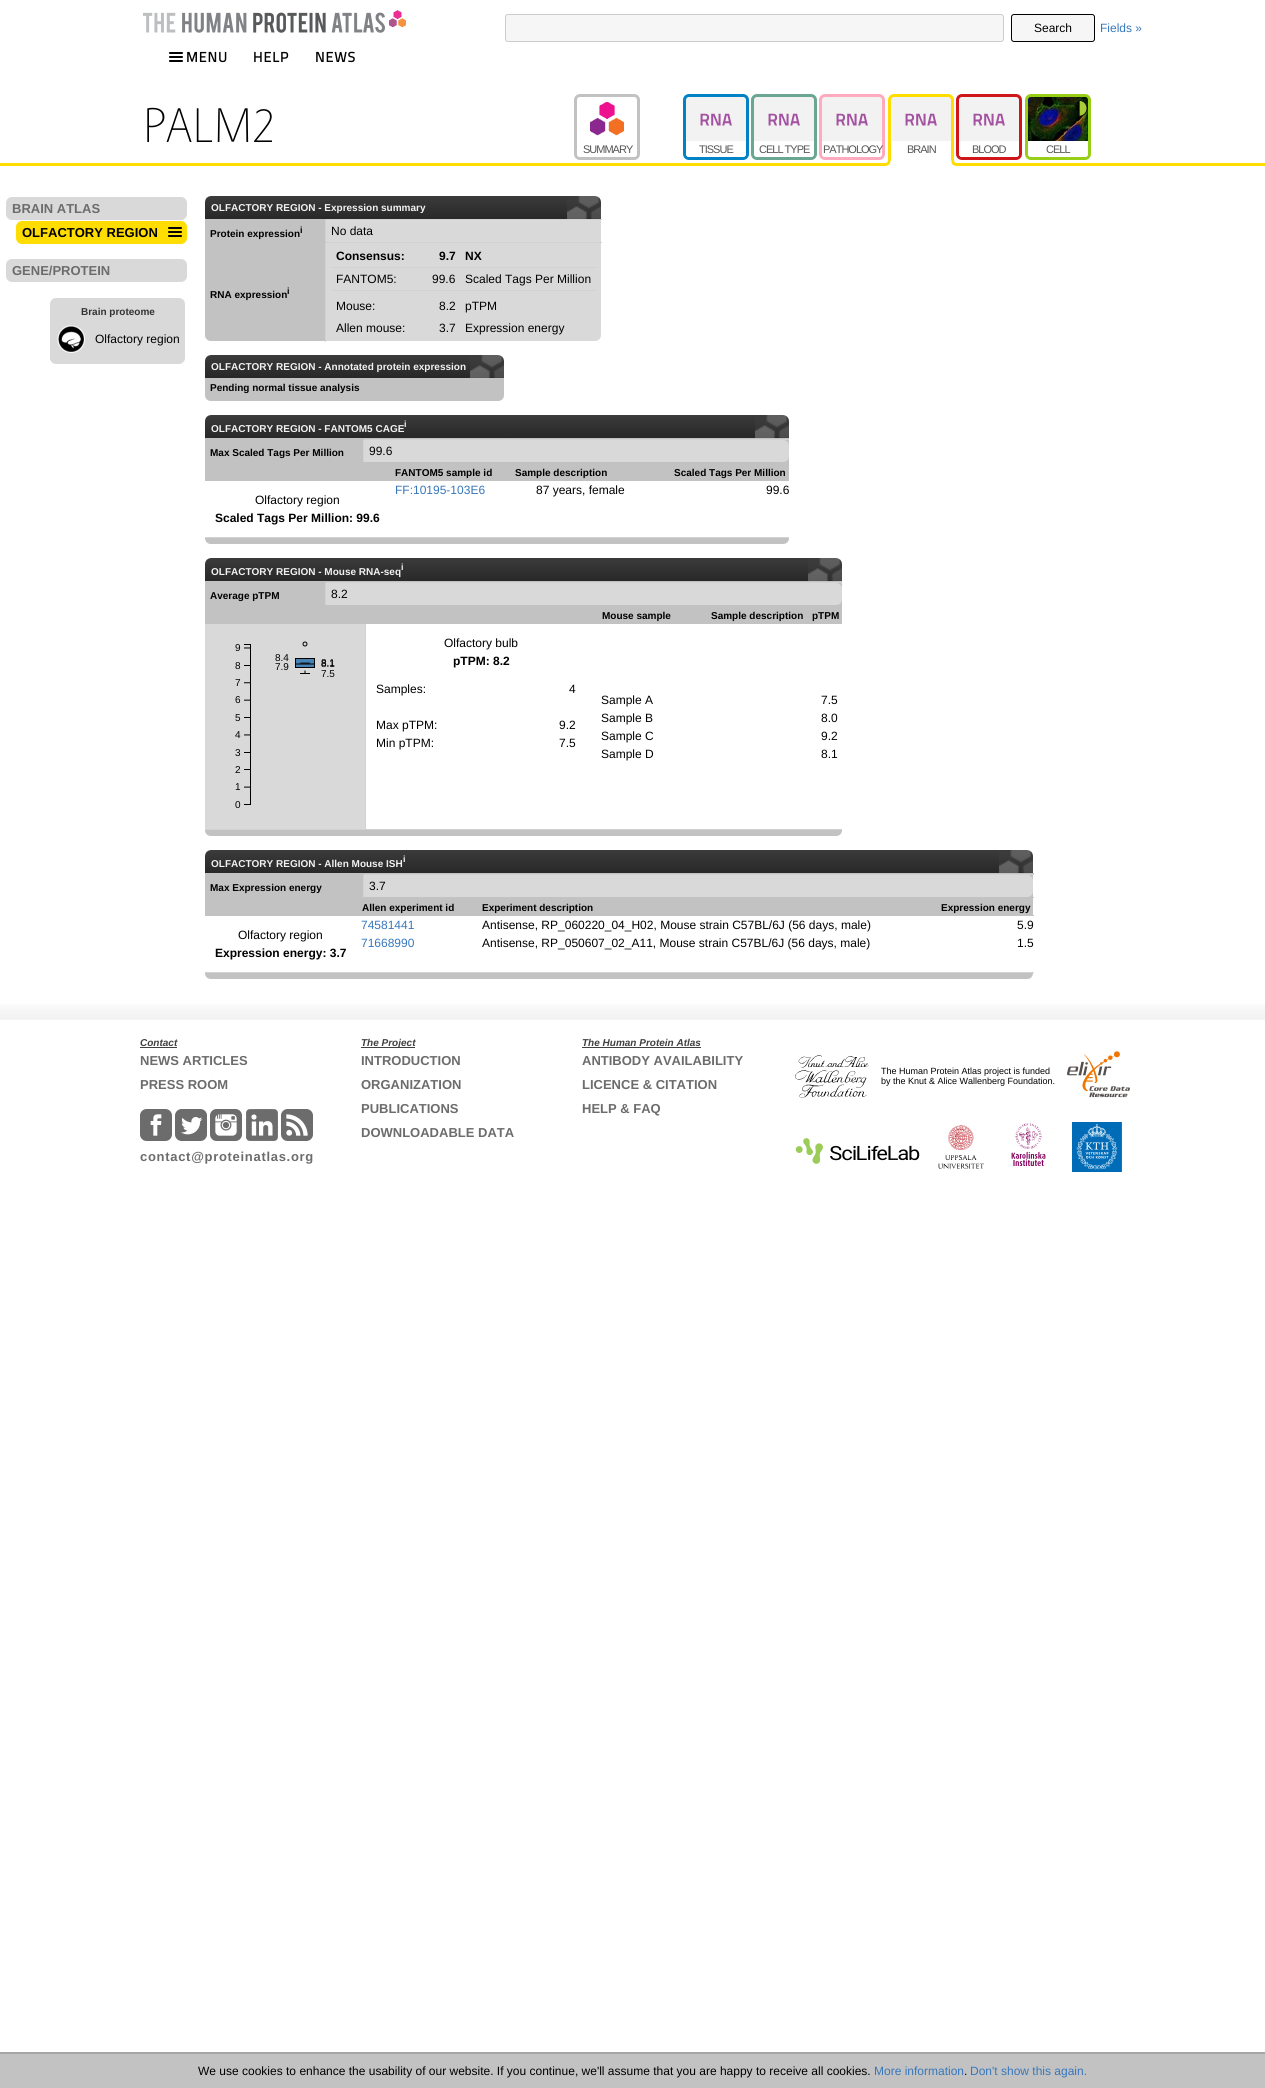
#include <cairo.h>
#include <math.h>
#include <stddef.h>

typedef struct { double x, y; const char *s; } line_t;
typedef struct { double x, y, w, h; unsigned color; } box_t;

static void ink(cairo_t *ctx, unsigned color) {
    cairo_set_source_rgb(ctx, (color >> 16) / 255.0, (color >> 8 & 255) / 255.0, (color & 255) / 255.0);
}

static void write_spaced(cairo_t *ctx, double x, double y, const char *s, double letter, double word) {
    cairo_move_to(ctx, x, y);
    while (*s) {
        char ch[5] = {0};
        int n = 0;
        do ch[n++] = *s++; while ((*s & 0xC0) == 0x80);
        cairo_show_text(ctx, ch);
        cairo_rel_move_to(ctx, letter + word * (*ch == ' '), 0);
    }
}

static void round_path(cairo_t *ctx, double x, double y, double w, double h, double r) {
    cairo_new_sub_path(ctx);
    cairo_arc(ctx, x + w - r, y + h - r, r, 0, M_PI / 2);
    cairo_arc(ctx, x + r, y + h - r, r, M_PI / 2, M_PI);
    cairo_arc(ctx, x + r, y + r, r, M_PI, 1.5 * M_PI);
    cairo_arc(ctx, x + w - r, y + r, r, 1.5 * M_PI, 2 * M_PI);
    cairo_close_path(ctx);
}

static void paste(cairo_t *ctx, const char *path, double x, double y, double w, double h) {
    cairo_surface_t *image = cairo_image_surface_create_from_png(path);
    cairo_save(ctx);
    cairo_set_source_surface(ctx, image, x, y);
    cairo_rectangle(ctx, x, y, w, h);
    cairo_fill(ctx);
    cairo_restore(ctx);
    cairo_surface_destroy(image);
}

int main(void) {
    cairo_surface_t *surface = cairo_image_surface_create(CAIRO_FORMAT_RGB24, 1265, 2088);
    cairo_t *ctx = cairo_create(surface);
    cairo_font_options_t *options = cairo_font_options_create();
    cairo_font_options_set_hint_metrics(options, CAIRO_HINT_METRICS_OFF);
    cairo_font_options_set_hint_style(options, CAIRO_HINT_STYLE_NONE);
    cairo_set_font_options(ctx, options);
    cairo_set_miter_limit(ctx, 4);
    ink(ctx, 0xFFFFFF);
    cairo_paint(ctx);
    paste(ctx, "media/1.png", 143, 12, 242, 21);
    paste(ctx, "media/2.png", 389, 10, 17, 18);
    ink(ctx, 0xF6F6F6);
    round_path(ctx, 505.5, 14.5, 498, 27, 2.5);
    cairo_fill_preserve(ctx);
    ink(ctx, 0xCCCCCC);
    cairo_set_line_width(ctx, 1);
    cairo_stroke(ctx);
    ink(ctx, 0xF6F6F6);
    round_path(ctx, 1011.5, 14.5, 83, 27, 2.5);
    cairo_fill_preserve(ctx);
    ink(ctx, 0x000000);
    cairo_stroke(ctx);
    cairo_select_font_face(ctx, "Liberation Sans", CAIRO_FONT_SLANT_NORMAL, CAIRO_FONT_WEIGHT_NORMAL);
    cairo_set_font_size(ctx, 12);
    cairo_move_to(ctx, 1034, 32);
    cairo_show_text(ctx, "Search");
    ink(ctx, 0x3777BC);
    cairo_move_to(ctx, 1100, 32);
    cairo_show_text(ctx, "Fields »");
    paste(ctx, "media/3.png", 169, 52, 14, 10);
    cairo_select_font_face(ctx, "Titillium Web", CAIRO_FONT_SLANT_NORMAL, CAIRO_FONT_WEIGHT_BOLD);
    cairo_set_font_size(ctx, 14);
    ink(ctx, 0x000000);
    {
        static const line_t items[] = {
            {186, 62, "MENU"},
            {253, 62, "HELP"},
            {315, 62, "NEWS"},
        };
        for (size_t i = 0; i < sizeof items / sizeof *items; i++) {
            write_spaced(ctx, items[i].x, items[i].y, items[i].s, 1, 0);
        }
    }
    cairo_select_font_face(ctx, "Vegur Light", CAIRO_FONT_SLANT_NORMAL, CAIRO_FONT_WEIGHT_NORMAL);
    cairo_set_font_size(ctx, 49);
    cairo_move_to(ctx, 143, 142);
    cairo_show_text(ctx, "PALM2");
    paste(ctx, "media/4.png", 590, 102, 34, 34);
    round_path(ctx, 575.5, 95.5, 63, 63, 4.5);
    ink(ctx, 0xC2C2C2);
    cairo_set_line_width(ctx, 3);
    cairo_stroke(ctx);
    ink(ctx, 0xFFFFFF);
    cairo_new_path(ctx);
    cairo_move_to(ctx, 577, 141);
    cairo_line_to(ctx, 637, 141);
    cairo_line_to(ctx, 637, 154);
    cairo_curve_to(ctx, 637, 155.5, 635.5, 157, 634, 157);
    cairo_line_to(ctx, 580, 157);
    cairo_curve_to(ctx, 578.5, 157, 577, 155.5, 577, 154);
    cairo_close_path(ctx);
    cairo_fill(ctx);
    cairo_select_font_face(ctx, "Liberation Sans", CAIRO_FONT_SLANT_NORMAL, CAIRO_FONT_WEIGHT_NORMAL);
    cairo_set_font_size(ctx, 11);
    ink(ctx, 0x555555);
    write_spaced(ctx, 583, 153, "SUMMARY", -1, 0);
    paste(ctx, "media/5.png", 686, 97, 60, 44);
    round_path(ctx, 684.5, 95.5, 63, 63, 4.5);
    ink(ctx, 0x0083C4);
    cairo_stroke(ctx);
    ink(ctx, 0xFFFFFF);
    cairo_new_path(ctx);
    cairo_move_to(ctx, 686, 141);
    cairo_line_to(ctx, 746, 141);
    cairo_line_to(ctx, 746, 154);
    cairo_curve_to(ctx, 746, 155.5, 744.5, 157, 743, 157);
    cairo_line_to(ctx, 689, 157);
    cairo_curve_to(ctx, 687.5, 157, 686, 155.5, 686, 154);
    cairo_close_path(ctx);
    cairo_fill(ctx);
    ink(ctx, 0x555555);
    write_spaced(ctx, 699, 153, "TISSUE", -1, 0);
    paste(ctx, "media/5.png", 754, 97, 60, 44);
    round_path(ctx, 752.5, 95.5, 63, 63, 4.5);
    ink(ctx, 0x6AA692);
    cairo_stroke(ctx);
    ink(ctx, 0xFFFFFF);
    cairo_new_path(ctx);
    cairo_move_to(ctx, 754, 141);
    cairo_line_to(ctx, 814, 141);
    cairo_line_to(ctx, 814, 154);
    cairo_curve_to(ctx, 814, 155.5, 812.5, 157, 811, 157);
    cairo_line_to(ctx, 757, 157);
    cairo_curve_to(ctx, 755.5, 157, 754, 155.5, 754, 154);
    cairo_close_path(ctx);
    cairo_fill(ctx);
    ink(ctx, 0x555555);
    write_spaced(ctx, 759, 153, "CELL TYPE", -1, 0);
    paste(ctx, "media/5.png", 822, 97, 60, 44);
    round_path(ctx, 820.5, 95.5, 63, 63, 4.5);
    ink(ctx, 0xFFAABF);
    cairo_stroke(ctx);
    ink(ctx, 0xFFFFFF);
    cairo_new_path(ctx);
    cairo_move_to(ctx, 822, 141);
    cairo_line_to(ctx, 882, 141);
    cairo_line_to(ctx, 882, 154);
    cairo_curve_to(ctx, 882, 155.5, 880.5, 157, 879, 157);
    cairo_line_to(ctx, 825, 157);
    cairo_curve_to(ctx, 823.5, 157, 822, 155.5, 822, 154);
    cairo_close_path(ctx);
    cairo_fill(ctx);
    ink(ctx, 0x555555);
    write_spaced(ctx, 823, 153, "PATHOLOGY", -1, 0);
    paste(ctx, "media/5.png", 891, 97, 60, 44);
    round_path(ctx, 889.5, 95.5, 63, 63, 4.5);
    ink(ctx, 0xFFDD00);
    cairo_stroke(ctx);
    cairo_rectangle(ctx, 0, 163, 1265, 3);
    cairo_fill(ctx);
    ink(ctx, 0xFFFFFF);
    cairo_rectangle(ctx, 891, 154, 60, 12);
    cairo_fill(ctx);
    ink(ctx, 0x555555);
    write_spaced(ctx, 907, 153, "BRAIN", -1, 0);
    ink(ctx, 0xFFDD00);
    cairo_new_path(ctx);
    cairo_move_to(ctx, 885, 163.5);
    cairo_line_to(ctx, 885, 166);
    cairo_curve_to(ctx, 891, 166, 891, 160.5, 891, 156);
    cairo_line_to(ctx, 889, 156);
    cairo_curve_to(ctx, 889, 159, 888.5, 162.5, 885, 163.5);
    cairo_close_path(ctx);
    cairo_fill(ctx);
    cairo_rectangle(ctx, 888, 154, 1, 7);
    cairo_fill(ctx);
    ink(ctx, 0xFFFFFF);
    cairo_set_fill_rule(ctx, CAIRO_FILL_RULE_EVEN_ODD);
    cairo_new_path(ctx);
    cairo_move_to(ctx, 885, 160);
    cairo_line_to(ctx, 894, 160);
    cairo_curve_to(ctx, 894, 165.5, 890.5, 170, 885, 170);
    cairo_close_path(ctx);
    cairo_move_to(ctx, 885, 160);
    cairo_line_to(ctx, 891, 160);
    cairo_curve_to(ctx, 891, 163.5, 888.5, 166, 885, 166);
    cairo_close_path(ctx);
    cairo_fill(ctx);
    paste(ctx, "media/5.png", 959, 97, 60, 44);
    round_path(ctx, 957.5, 95.5, 63, 63, 4.5);
    ink(ctx, 0xCF161A);
    cairo_stroke(ctx);
    ink(ctx, 0xFFDD00);
    cairo_set_fill_rule(ctx, CAIRO_FILL_RULE_WINDING);
    cairo_new_path(ctx);
    cairo_move_to(ctx, 951, 156);
    cairo_curve_to(ctx, 951, 160.5, 951, 166, 957, 166);
    cairo_line_to(ctx, 957, 163.5);
    cairo_curve_to(ctx, 953.5, 162.5, 953, 159, 953, 156);
    cairo_close_path(ctx);
    cairo_fill(ctx);
    cairo_rectangle(ctx, 953, 154, 1, 7);
    cairo_fill(ctx);
    ink(ctx, 0xFFFFFF);
    cairo_set_fill_rule(ctx, CAIRO_FILL_RULE_EVEN_ODD);
    cairo_new_path(ctx);
    cairo_move_to(ctx, 948, 160);
    cairo_line_to(ctx, 957, 160);
    cairo_line_to(ctx, 957, 170);
    cairo_curve_to(ctx, 952, 170, 948, 166, 948, 161);
    cairo_close_path(ctx);
    cairo_move_to(ctx, 951, 160);
    cairo_line_to(ctx, 957, 160);
    cairo_line_to(ctx, 957, 166);
    cairo_curve_to(ctx, 953.5, 166, 951, 164, 951, 161);
    cairo_close_path(ctx);
    cairo_fill(ctx);
    cairo_new_path(ctx);
    cairo_move_to(ctx, 959, 141);
    cairo_line_to(ctx, 1019, 141);
    cairo_line_to(ctx, 1019, 154);
    cairo_curve_to(ctx, 1019, 155.5, 1017.5, 157, 1016, 157);
    cairo_line_to(ctx, 962, 157);
    cairo_curve_to(ctx, 960.5, 157, 959, 155.5, 959, 154);
    cairo_close_path(ctx);
    cairo_fill(ctx);
    ink(ctx, 0x555555);
    write_spaced(ctx, 972, 153, "BLOOD", -1, 0);
    paste(ctx, "media/6.png", 1028, 97, 60, 44);
    round_path(ctx, 1026.5, 95.5, 63, 63, 4.5);
    ink(ctx, 0x97CF16);
    cairo_stroke(ctx);
    paste(ctx, "media/7.png", 1078, 100, 10, 17);
    ink(ctx, 0xFFFFFF);
    cairo_new_path(ctx);
    cairo_move_to(ctx, 1028, 141);
    cairo_line_to(ctx, 1088, 141);
    cairo_line_to(ctx, 1088, 154);
    cairo_curve_to(ctx, 1088, 155.5, 1086.5, 157, 1085, 157);
    cairo_line_to(ctx, 1031, 157);
    cairo_curve_to(ctx, 1029.5, 157, 1028, 155.5, 1028, 154);
    cairo_close_path(ctx);
    cairo_fill(ctx);
    ink(ctx, 0x555555);
    write_spaced(ctx, 1046, 153, "CELL", -1, 0);
    ink(ctx, 0xD9D9D9);
    round_path(ctx, 6, 197, 181, 23, 6);
    cairo_fill(ctx);
    cairo_select_font_face(ctx, "Liberation Sans", CAIRO_FONT_SLANT_NORMAL, CAIRO_FONT_WEIGHT_BOLD);
    cairo_set_font_size(ctx, 13);
    ink(ctx, 0x6C6C6C);
    cairo_move_to(ctx, 12, 213);
    cairo_show_text(ctx, "BRAIN ATLAS");
    ink(ctx, 0xFFDD00);
    round_path(ctx, 16, 221, 171, 23, 6);
    cairo_fill(ctx);
    ink(ctx, 0x000000);
    cairo_move_to(ctx, 22, 237);
    cairo_show_text(ctx, "OLFACTORY REGION");
    paste(ctx, "media/8.png", 168, 227, 14, 10);
    ink(ctx, 0xD9D9D9);
    round_path(ctx, 6, 259, 181, 23, 6);
    cairo_fill(ctx);
    ink(ctx, 0x6C6C6C);
    cairo_move_to(ctx, 12, 275);
    cairo_show_text(ctx, "GENE/PROTEIN");
    ink(ctx, 0xD9D9D9);
    round_path(ctx, 50, 298, 135, 66, 6);
    cairo_fill(ctx);
    cairo_set_font_size(ctx, 10);
    ink(ctx, 0x333333);
    cairo_move_to(ctx, 81, 315);
    cairo_show_text(ctx, "Brain proteome");
    paste(ctx, "media/9.png", 57, 325, 28, 28);
    cairo_select_font_face(ctx, "Liberation Sans", CAIRO_FONT_SLANT_NORMAL, CAIRO_FONT_WEIGHT_NORMAL);
    cairo_set_font_size(ctx, 12);
    ink(ctx, 0x000000);
    cairo_move_to(ctx, 95, 343);
    cairo_show_text(ctx, "Olfactory region");
    paste(ctx, "media/10.png", 205, 196, 396, 23);
    cairo_select_font_face(ctx, "Liberation Sans", CAIRO_FONT_SLANT_NORMAL, CAIRO_FONT_WEIGHT_BOLD);
    cairo_set_font_size(ctx, 10);
    ink(ctx, 0xF2F2F2);
    cairo_move_to(ctx, 211, 211);
    cairo_show_text(ctx, "OLFACTORY REGION - Expression summary");
    ink(ctx, 0xC2C2C2);
    cairo_rectangle(ctx, 205, 220, 120, 22);
    cairo_fill(ctx);
    ink(ctx, 0xD2D2D2);
    cairo_rectangle(ctx, 325, 219, 277, 1);
    cairo_fill(ctx);
    ink(ctx, 0xC2C2C2);
    cairo_new_path(ctx);
    cairo_move_to(ctx, 205, 243);
    cairo_line_to(ctx, 326, 243);
    cairo_line_to(ctx, 326, 341);
    cairo_line_to(ctx, 211, 341);
    cairo_curve_to(ctx, 207.5, 341, 205, 338.5, 205, 335);
    cairo_close_path(ctx);
    cairo_fill(ctx);
    {
        static const box_t items[] = {
            {325, 242, 1, 100, 0xD2D2D2},
            {325, 242, 277, 1, 0xD2D2D2},
            {325, 219, 1, 24, 0xD2D2D2},
            {205, 219, 121, 1, 0xC2C2C2},
            {205, 242, 121, 1, 0xC2C2C2},
        };
        for (size_t i = 0; i < sizeof items / sizeof *items; i++) {
            ink(ctx, items[i].color);
            cairo_rectangle(ctx, items[i].x, items[i].y, items[i].w, items[i].h);
            cairo_fill(ctx);
        }
    }
    ink(ctx, 0x000000);
    cairo_move_to(ctx, 210, 237);
    cairo_show_text(ctx, "Protein expression");
    cairo_set_font_size(ctx, 9);
    cairo_move_to(ctx, 300, 233);
    cairo_show_text(ctx, "i");
    ink(ctx, 0xD9D9D9);
    cairo_rectangle(ctx, 326, 220, 275, 22);
    cairo_fill(ctx);
    cairo_select_font_face(ctx, "Liberation Sans", CAIRO_FONT_SLANT_NORMAL, CAIRO_FONT_WEIGHT_NORMAL);
    cairo_set_font_size(ctx, 12);
    ink(ctx, 0x000000);
    cairo_move_to(ctx, 331, 235);
    cairo_show_text(ctx, "No data");
    cairo_select_font_face(ctx, "Liberation Sans", CAIRO_FONT_SLANT_NORMAL, CAIRO_FONT_WEIGHT_BOLD);
    cairo_set_font_size(ctx, 10);
    cairo_move_to(ctx, 210, 298);
    cairo_show_text(ctx, "RNA expression");
    cairo_set_font_size(ctx, 9);
    cairo_move_to(ctx, 287, 294);
    cairo_show_text(ctx, "i");
    ink(ctx, 0xD9D9D9);
    cairo_new_path(ctx);
    cairo_move_to(ctx, 326, 243);
    cairo_line_to(ctx, 601, 243);
    cairo_line_to(ctx, 601, 335);
    cairo_curve_to(ctx, 601, 338.5, 598.5, 341, 595, 341);
    cairo_line_to(ctx, 326, 341);
    cairo_close_path(ctx);
    cairo_fill(ctx);
    cairo_set_font_size(ctx, 12);
    ink(ctx, 0x000000);
    cairo_move_to(ctx, 336, 260);
    cairo_show_text(ctx, "Consensus:");
    cairo_move_to(ctx, 439, 260);
    cairo_show_text(ctx, "9.7");
    ink(ctx, 0xD2D2D2);
    cairo_rectangle(ctx, 331, 267, 266, 1);
    cairo_fill(ctx);
    ink(ctx, 0x000000);
    cairo_move_to(ctx, 465, 260);
    cairo_show_text(ctx, "NX");
    cairo_select_font_face(ctx, "Liberation Sans", CAIRO_FONT_SLANT_NORMAL, CAIRO_FONT_WEIGHT_NORMAL);
    {
        static const line_t items[] = {
            {336, 283, "FANTOM5:"},
            {432, 283, "99.6"},
            {465, 283, "Scaled Tags Per Million"},
        };
        for (size_t i = 0; i < sizeof items / sizeof *items; i++) {
            cairo_move_to(ctx, items[i].x, items[i].y);
            cairo_show_text(ctx, items[i].s);
        }
    }
    ink(ctx, 0xD2D2D2);
    cairo_rectangle(ctx, 331, 290, 266, 1);
    cairo_fill(ctx);
    ink(ctx, 0x000000);
    {
        static const line_t items[] = {
            {336, 310, "Mouse:"},
            {439, 310, "8.2"},
            {465, 310, "pTPM"},
            {336, 332, "Allen mouse:"},
            {439, 332, "3.7"},
            {465, 332, "Expression energy"},
        };
        for (size_t i = 0; i < sizeof items / sizeof *items; i++) {
            cairo_move_to(ctx, items[i].x, items[i].y);
            cairo_show_text(ctx, items[i].s);
        }
    }
    paste(ctx, "media/11.png", 205, 355, 299, 23);
    cairo_select_font_face(ctx, "Liberation Sans", CAIRO_FONT_SLANT_NORMAL, CAIRO_FONT_WEIGHT_BOLD);
    cairo_set_font_size(ctx, 10);
    ink(ctx, 0xF2F2F2);
    cairo_move_to(ctx, 211, 370);
    cairo_show_text(ctx, "OLFACTORY REGION - Annotated protein expression");
    ink(ctx, 0xC2C2C2);
    cairo_rectangle(ctx, 205, 378, 299, 17);
    cairo_fill(ctx);
    ink(ctx, 0x000000);
    cairo_move_to(ctx, 210, 391);
    cairo_show_text(ctx, "Pending normal tissue analysis");
    ink(ctx, 0xC2C2C2);
    cairo_new_path(ctx);
    cairo_move_to(ctx, 205, 395);
    cairo_line_to(ctx, 504, 395);
    cairo_curve_to(ctx, 504, 398.5, 501.5, 401, 498, 401);
    cairo_line_to(ctx, 211, 401);
    cairo_curve_to(ctx, 207.5, 401, 205, 398.5, 205, 395);
    cairo_close_path(ctx);
    cairo_fill(ctx);
    paste(ctx, "media/12.png", 205, 415, 584, 23);
    cairo_set_font_size(ctx, 9);
    ink(ctx, 0xF2F2F2);
    cairo_move_to(ctx, 404, 427);
    cairo_show_text(ctx, "i");
    cairo_set_font_size(ctx, 10);
    cairo_move_to(ctx, 211, 432);
    cairo_show_text(ctx, "OLFACTORY REGION - FANTOM5 CAGE");
    {
        static const box_t items[] = {
            {205, 440, 584, 23, 0xC2C2C2},
            {205, 438, 584, 1, 0xC2C2C2},
            {363, 439, 426, 1, 0xD2D2D2},
            {363, 439, 1, 24, 0xD2D2D2},
            {205, 439, 159, 1, 0xC2C2C2},
        };
        for (size_t i = 0; i < sizeof items / sizeof *items; i++) {
            ink(ctx, items[i].color);
            cairo_rectangle(ctx, items[i].x, items[i].y, items[i].w, items[i].h);
            cairo_fill(ctx);
        }
    }
    ink(ctx, 0x000000);
    cairo_move_to(ctx, 210, 456);
    cairo_show_text(ctx, "Max Scaled Tags Per Million");
    ink(ctx, 0xD9D9D9);
    cairo_new_path(ctx);
    cairo_move_to(ctx, 364, 440);
    cairo_line_to(ctx, 783, 440);
    cairo_curve_to(ctx, 786.5, 440, 789, 442.5, 789, 446);
    cairo_line_to(ctx, 789, 456);
    cairo_curve_to(ctx, 789, 459.5, 786.5, 462, 783, 462);
    cairo_line_to(ctx, 364, 462);
    cairo_close_path(ctx);
    cairo_fill(ctx);
    cairo_select_font_face(ctx, "Liberation Sans", CAIRO_FONT_SLANT_NORMAL, CAIRO_FONT_WEIGHT_NORMAL);
    cairo_set_font_size(ctx, 12);
    ink(ctx, 0x000000);
    cairo_move_to(ctx, 369, 455);
    cairo_show_text(ctx, "99.6");
    ink(ctx, 0xC2C2C2);
    cairo_rectangle(ctx, 205, 463, 584, 17);
    cairo_fill(ctx);
    cairo_rectangle(ctx, 363, 462, 1, 1);
    cairo_fill(ctx);
    cairo_select_font_face(ctx, "Liberation Sans", CAIRO_FONT_SLANT_NORMAL, CAIRO_FONT_WEIGHT_BOLD);
    cairo_set_font_size(ctx, 10);
    ink(ctx, 0x000000);
    cairo_move_to(ctx, 395, 476);
    cairo_show_text(ctx, "FANTOM5 sample id");
    cairo_move_to(ctx, 515, 476);
    cairo_show_text(ctx, "Sample description");
    ink(ctx, 0xC2C2C2);
    cairo_rectangle(ctx, 205, 480, 584, 1);
    cairo_fill(ctx);
    ink(ctx, 0x000000);
    cairo_move_to(ctx, 674, 476);
    cairo_show_text(ctx, "Scaled Tags Per Million");
    ink(ctx, 0xD2D2D2);
    cairo_rectangle(ctx, 205, 537, 584, 1);
    cairo_fill(ctx);
    cairo_select_font_face(ctx, "Liberation Sans", CAIRO_FONT_SLANT_NORMAL, CAIRO_FONT_WEIGHT_NORMAL);
    cairo_set_font_size(ctx, 12);
    ink(ctx, 0x3777BC);
    cairo_move_to(ctx, 395, 494);
    cairo_show_text(ctx, "FF:10195-103E6");
    ink(ctx, 0x000000);
    {
        static const line_t items[] = {
            {536, 494, "87 years, female"},
            {766, 494, "99.6"},
            {255, 504, "Olfactory region"},
        };
        for (size_t i = 0; i < sizeof items / sizeof *items; i++) {
            cairo_move_to(ctx, items[i].x, items[i].y);
            cairo_show_text(ctx, items[i].s);
        }
    }
    cairo_select_font_face(ctx, "Liberation Sans", CAIRO_FONT_SLANT_NORMAL, CAIRO_FONT_WEIGHT_BOLD);
    cairo_move_to(ctx, 215, 522);
    cairo_show_text(ctx, "Scaled Tags Per Million: 99.6");
    ink(ctx, 0xC2C2C2);
    cairo_new_path(ctx);
    cairo_move_to(ctx, 205, 538);
    cairo_line_to(ctx, 789, 538);
    cairo_curve_to(ctx, 789, 541.5, 786.5, 544, 783, 544);
    cairo_line_to(ctx, 211, 544);
    cairo_curve_to(ctx, 207.5, 544, 205, 541.5, 205, 538);
    cairo_close_path(ctx);
    cairo_fill(ctx);
    paste(ctx, "media/13.png", 205, 558, 637, 23);
    cairo_set_font_size(ctx, 9);
    ink(ctx, 0xF2F2F2);
    cairo_move_to(ctx, 401, 570);
    cairo_show_text(ctx, "i");
    cairo_set_font_size(ctx, 10);
    cairo_move_to(ctx, 211, 575);
    cairo_show_text(ctx, "OLFACTORY REGION - Mouse RNA-seq");
    {
        static const box_t items[] = {
            {205, 583, 637, 23, 0xC2C2C2},
            {205, 581, 637, 1, 0xC2C2C2},
            {325, 582, 517, 1, 0xD2D2D2},
            {325, 582, 1, 24, 0xD2D2D2},
            {205, 582, 121, 1, 0xC2C2C2},
        };
        for (size_t i = 0; i < sizeof items / sizeof *items; i++) {
            ink(ctx, items[i].color);
            cairo_rectangle(ctx, items[i].x, items[i].y, items[i].w, items[i].h);
            cairo_fill(ctx);
        }
    }
    ink(ctx, 0x000000);
    cairo_move_to(ctx, 210, 599);
    cairo_show_text(ctx, "Average pTPM");
    ink(ctx, 0xD9D9D9);
    cairo_new_path(ctx);
    cairo_move_to(ctx, 326, 583);
    cairo_line_to(ctx, 836, 583);
    cairo_curve_to(ctx, 839.5, 583, 842, 585.5, 842, 589);
    cairo_line_to(ctx, 842, 599);
    cairo_curve_to(ctx, 842, 602.5, 839.5, 605, 836, 605);
    cairo_line_to(ctx, 326, 605);
    cairo_close_path(ctx);
    cairo_fill(ctx);
    cairo_select_font_face(ctx, "Liberation Sans", CAIRO_FONT_SLANT_NORMAL, CAIRO_FONT_WEIGHT_NORMAL);
    cairo_set_font_size(ctx, 12);
    ink(ctx, 0x000000);
    cairo_move_to(ctx, 331, 598);
    cairo_show_text(ctx, "8.2");
    ink(ctx, 0xC2C2C2);
    cairo_rectangle(ctx, 205, 606, 637, 17);
    cairo_fill(ctx);
    cairo_rectangle(ctx, 325, 605, 1, 1);
    cairo_fill(ctx);
    cairo_select_font_face(ctx, "Liberation Sans", CAIRO_FONT_SLANT_NORMAL, CAIRO_FONT_WEIGHT_BOLD);
    cairo_set_font_size(ctx, 10);
    ink(ctx, 0x000000);
    cairo_move_to(ctx, 602, 619);
    cairo_show_text(ctx, "Mouse sample");
    cairo_move_to(ctx, 711, 619);
    cairo_show_text(ctx, "Sample description");
    {
        static const box_t items[] = {
            {365, 829, 477, 1, 0xD2D2D2},
            {365, 623, 1, 207, 0xD2D2D2},
            {205, 623, 637, 1, 0xC2C2C2},
        };
        for (size_t i = 0; i < sizeof items / sizeof *items; i++) {
            ink(ctx, items[i].color);
            cairo_rectangle(ctx, items[i].x, items[i].y, items[i].w, items[i].h);
            cairo_fill(ctx);
        }
    }
    ink(ctx, 0x000000);
    cairo_move_to(ctx, 812, 619);
    cairo_show_text(ctx, "pTPM");
    ink(ctx, 0xD9D9D9);
    cairo_rectangle(ctx, 205, 624, 160, 205);
    cairo_fill(ctx);
    ink(ctx, 0xD2D2D2);
    cairo_rectangle(ctx, 205, 829, 161, 1);
    cairo_fill(ctx);
    cairo_select_font_face(ctx, "Liberation Sans", CAIRO_FONT_SLANT_NORMAL, CAIRO_FONT_WEIGHT_NORMAL);
    ink(ctx, 0x000000);
    cairo_move_to(ctx, 235, 651);
    cairo_show_text(ctx, "9");
    paste(ctx, "media/14.png", 244, 641, 71, 164);
    {
        static const line_t items[] = {
            {275, 661, "8.4"},
            {321, 667, "8.1"},
            {321, 666, "8.1"},
            {235, 669, "8"},
            {275, 670, "7.9"},
            {321, 677, "7.5"},
            {235, 686, "7"},
            {235, 703, "6"},
            {235, 721, "5"},
            {235, 738, "4"},
            {235, 756, "3"},
            {235, 773, "2"},
            {235, 790, "1"},
            {235, 808, "0"},
        };
        for (size_t i = 0; i < sizeof items / sizeof *items; i++) {
            cairo_move_to(ctx, items[i].x, items[i].y);
            cairo_show_text(ctx, items[i].s);
        }
    }
    cairo_set_font_size(ctx, 12);
    cairo_move_to(ctx, 444, 647);
    cairo_show_text(ctx, "Olfactory bulb");
    cairo_select_font_face(ctx, "Liberation Sans", CAIRO_FONT_SLANT_NORMAL, CAIRO_FONT_WEIGHT_BOLD);
    cairo_move_to(ctx, 453, 665);
    cairo_show_text(ctx, "pTPM: 8.2");
    cairo_select_font_face(ctx, "Liberation Sans", CAIRO_FONT_SLANT_NORMAL, CAIRO_FONT_WEIGHT_NORMAL);
    {
        static const line_t items[] = {
            {376, 693, "Samples:"},
            {569, 693, "4"},
            {376, 729, "Max pTPM:"},
            {559, 729, "9.2"},
            {376, 747, "Min pTPM:"},
            {559, 747, "7.5"},
            {601, 704, "Sample A"},
            {821, 704, "7.5"},
            {601, 722, "Sample B"},
            {821, 722, "8.0"},
            {601, 740, "Sample C"},
            {821, 740, "9.2"},
            {601, 758, "Sample D"},
            {821, 758, "8.1"},
        };
        for (size_t i = 0; i < sizeof items / sizeof *items; i++) {
            cairo_move_to(ctx, items[i].x, items[i].y);
            cairo_show_text(ctx, items[i].s);
        }
    }
    ink(ctx, 0xC2C2C2);
    cairo_new_path(ctx);
    cairo_move_to(ctx, 205, 830);
    cairo_line_to(ctx, 842, 830);
    cairo_curve_to(ctx, 842, 833.5, 839.5, 836, 836, 836);
    cairo_line_to(ctx, 211, 836);
    cairo_curve_to(ctx, 207.5, 836, 205, 833.5, 205, 830);
    cairo_close_path(ctx);
    cairo_fill(ctx);
    paste(ctx, "media/15.png", 205, 850, 828, 23);
    cairo_select_font_face(ctx, "Liberation Sans", CAIRO_FONT_SLANT_NORMAL, CAIRO_FONT_WEIGHT_BOLD);
    cairo_set_font_size(ctx, 10);
    ink(ctx, 0xF2F2F2);
    cairo_move_to(ctx, 211, 867);
    cairo_show_text(ctx, "OLFACTORY REGION - Allen Mouse ISH");
    cairo_set_font_size(ctx, 9);
    cairo_move_to(ctx, 403, 862);
    cairo_show_text(ctx, "i");
    {
        static const box_t items[] = {
            {205, 875, 828, 23, 0xC2C2C2},
            {205, 873, 829, 1, 0xC2C2C2},
            {363, 874, 671, 1, 0xD2D2D2},
            {363, 874, 1, 24, 0xD2D2D2},
            {205, 874, 159, 1, 0xC2C2C2},
        };
        for (size_t i = 0; i < sizeof items / sizeof *items; i++) {
            ink(ctx, items[i].color);
            cairo_rectangle(ctx, items[i].x, items[i].y, items[i].w, items[i].h);
            cairo_fill(ctx);
        }
    }
    cairo_set_font_size(ctx, 10);
    ink(ctx, 0x000000);
    cairo_move_to(ctx, 210, 891);
    cairo_show_text(ctx, "Max Expression energy");
    ink(ctx, 0xD9D9D9);
    cairo_new_path(ctx);
    cairo_move_to(ctx, 364, 875);
    cairo_line_to(ctx, 1027, 875);
    cairo_curve_to(ctx, 1030.5, 875, 1033, 877.5, 1033, 881);
    cairo_line_to(ctx, 1033, 891);
    cairo_curve_to(ctx, 1033, 894.5, 1030.5, 897, 1027, 897);
    cairo_line_to(ctx, 364, 897);
    cairo_close_path(ctx);
    cairo_fill(ctx);
    cairo_select_font_face(ctx, "Liberation Sans", CAIRO_FONT_SLANT_NORMAL, CAIRO_FONT_WEIGHT_NORMAL);
    cairo_set_font_size(ctx, 12);
    ink(ctx, 0x000000);
    cairo_move_to(ctx, 369, 890);
    cairo_show_text(ctx, "3.7");
    ink(ctx, 0xC2C2C2);
    cairo_rectangle(ctx, 205, 898, 828, 17);
    cairo_fill(ctx);
    cairo_rectangle(ctx, 356, 897, 8, 1);
    cairo_fill(ctx);
    cairo_select_font_face(ctx, "Liberation Sans", CAIRO_FONT_SLANT_NORMAL, CAIRO_FONT_WEIGHT_BOLD);
    cairo_set_font_size(ctx, 10);
    ink(ctx, 0x000000);
    cairo_move_to(ctx, 362, 911);
    cairo_show_text(ctx, "Allen experiment id");
    cairo_move_to(ctx, 482, 911);
    cairo_show_text(ctx, "Experiment description");
    ink(ctx, 0xC2C2C2);
    cairo_rectangle(ctx, 1033, 897, 1, 1);
    cairo_fill(ctx);
    cairo_rectangle(ctx, 205, 915, 829, 1);
    cairo_fill(ctx);
    ink(ctx, 0x000000);
    cairo_move_to(ctx, 941, 911);
    cairo_show_text(ctx, "Expression energy");
    cairo_select_font_face(ctx, "Liberation Sans", CAIRO_FONT_SLANT_NORMAL, CAIRO_FONT_WEIGHT_NORMAL);
    cairo_set_font_size(ctx, 12);
    cairo_move_to(ctx, 238, 939);
    cairo_show_text(ctx, "Olfactory region");
    cairo_select_font_face(ctx, "Liberation Sans", CAIRO_FONT_SLANT_NORMAL, CAIRO_FONT_WEIGHT_BOLD);
    cairo_move_to(ctx, 215, 957);
    cairo_show_text(ctx, "Expression energy: 3.7");
    ink(ctx, 0xD2D2D2);
    cairo_rectangle(ctx, 205, 972, 829, 1);
    cairo_fill(ctx);
    cairo_select_font_face(ctx, "Liberation Sans", CAIRO_FONT_SLANT_NORMAL, CAIRO_FONT_WEIGHT_NORMAL);
    ink(ctx, 0x3777BC);
    cairo_move_to(ctx, 361, 929);
    cairo_show_text(ctx, "74581441");
    ink(ctx, 0x000000);
    cairo_move_to(ctx, 482, 929);
    cairo_show_text(ctx, "Antisense, RP_060220_04_H02, Mouse strain C57BL/6J (56 days, male)");
    cairo_move_to(ctx, 1017, 929);
    cairo_show_text(ctx, "5.9");
    ink(ctx, 0x3777BC);
    cairo_move_to(ctx, 361, 947);
    cairo_show_text(ctx, "71668990");
    ink(ctx, 0x000000);
    cairo_move_to(ctx, 482, 947);
    cairo_show_text(ctx, "Antisense, RP_050607_02_A11, Mouse strain C57BL/6J (56 days, male)");
    cairo_move_to(ctx, 1017, 947);
    cairo_show_text(ctx, "1.5");
    ink(ctx, 0xC2C2C2);
    cairo_new_path(ctx);
    cairo_move_to(ctx, 205, 973);
    cairo_line_to(ctx, 1033, 973);
    cairo_curve_to(ctx, 1033, 976.5, 1030.5, 979, 1027, 979);
    cairo_line_to(ctx, 211, 979);
    cairo_curve_to(ctx, 207.5, 979, 205, 976.5, 205, 973);
    cairo_close_path(ctx);
    cairo_fill(ctx);
    paste(ctx, "media/16.png", 0, 1004, 1265, 16);
    cairo_select_font_face(ctx, "Liberation Sans", CAIRO_FONT_SLANT_ITALIC, CAIRO_FONT_WEIGHT_BOLD);
    cairo_set_font_size(ctx, 10);
    ink(ctx, 0x404040);
    cairo_move_to(ctx, 140, 1046);
    cairo_show_text(ctx, "Contact");
    cairo_rectangle(ctx, 140, 1047, 37, 1);
    cairo_fill(ctx);
    cairo_select_font_face(ctx, "Liberation Sans", CAIRO_FONT_SLANT_NORMAL, CAIRO_FONT_WEIGHT_BOLD);
    cairo_set_font_size(ctx, 13);
    ink(ctx, 0x6C6C6C);
    cairo_move_to(ctx, 140, 1065);
    cairo_show_text(ctx, "NEWS ARTICLES");
    cairo_move_to(ctx, 140, 1089);
    cairo_show_text(ctx, "PRESS ROOM");
    paste(ctx, "media/17.png", 140, 1109, 32, 32);
    paste(ctx, "media/18.png", 175, 1109, 32, 32);
    paste(ctx, "media/19.png", 210, 1109, 32, 32);
    paste(ctx, "media/20.png", 246, 1109, 32, 32);
    paste(ctx, "media/21.png", 281, 1109, 32, 32);
    write_spaced(ctx, 140, 1161, "contact@proteinatlas.org", 0.7, 0);
    ink(ctx, 0x404040);
    cairo_rectangle(ctx, 361, 1047, 54, 1);
    cairo_fill(ctx);
    cairo_select_font_face(ctx, "Liberation Sans", CAIRO_FONT_SLANT_ITALIC, CAIRO_FONT_WEIGHT_BOLD);
    cairo_set_font_size(ctx, 10);
    cairo_move_to(ctx, 361, 1046);
    cairo_show_text(ctx, "The Project");
    cairo_select_font_face(ctx, "Liberation Sans", CAIRO_FONT_SLANT_NORMAL, CAIRO_FONT_WEIGHT_BOLD);
    cairo_set_font_size(ctx, 13);
    ink(ctx, 0x6C6C6C);
    {
        static const line_t items[] = {
            {361, 1065, "INTRODUCTION"},
            {361, 1089, "ORGANIZATION"},
            {361, 1113, "PUBLICATIONS"},
            {361, 1137, "DOWNLOADABLE DATA"},
        };
        for (size_t i = 0; i < sizeof items / sizeof *items; i++) {
            cairo_move_to(ctx, items[i].x, items[i].y);
            cairo_show_text(ctx, items[i].s);
        }
    }
    cairo_select_font_face(ctx, "Liberation Sans", CAIRO_FONT_SLANT_ITALIC, CAIRO_FONT_WEIGHT_BOLD);
    cairo_set_font_size(ctx, 10);
    ink(ctx, 0x404040);
    cairo_move_to(ctx, 582, 1046);
    cairo_show_text(ctx, "The Human Protein Atlas");
    cairo_rectangle(ctx, 582, 1047, 119, 1);
    cairo_fill(ctx);
    cairo_select_font_face(ctx, "Liberation Sans", CAIRO_FONT_SLANT_NORMAL, CAIRO_FONT_WEIGHT_BOLD);
    cairo_set_font_size(ctx, 13);
    ink(ctx, 0x6C6C6C);
    {
        static const line_t items[] = {
            {582, 1065, "ANTIBODY AVAILABILITY"},
            {582, 1089, "LICENCE & CITATION"},
            {582, 1113, "HELP & FAQ"},
        };
        for (size_t i = 0; i < sizeof items / sizeof *items; i++) {
            cairo_move_to(ctx, items[i].x, items[i].y);
            cairo_show_text(ctx, items[i].s);
        }
    }
    paste(ctx, "media/22.png", 795, 1055, 74, 43);
    cairo_select_font_face(ctx, "Liberation Sans", CAIRO_FONT_SLANT_NORMAL, CAIRO_FONT_WEIGHT_NORMAL);
    cairo_set_font_size(ctx, 9);
    ink(ctx, 0x000000);
    cairo_move_to(ctx, 881, 1074);
    cairo_show_text(ctx, "The Human Protein Atlas project is funded");
    cairo_move_to(ctx, 881, 1084);
    cairo_show_text(ctx, "by the Knut & Alice Wallenberg Foundation.");
    paste(ctx, "media/23.png", 1067, 1051, 63, 47);
    paste(ctx, "media/24.png", 795, 1138, 125, 26);
    paste(ctx, "media/25.png", 938, 1125, 46, 44);
    paste(ctx, "media/26.png", 1011, 1123, 35, 43);
    paste(ctx, "media/27.png", 1072, 1122, 50, 50);
    ink(ctx, 0xC2C2C2);
    cairo_rectangle(ctx, 0, 2054, 1265, 34);
    cairo_fill(ctx);
    ink(ctx, 0xA6A6A6);
    cairo_rectangle(ctx, 0, 2052, 1265, 2);
    cairo_fill(ctx);
    cairo_set_font_size(ctx, 12);
    ink(ctx, 0x000000);
    cairo_move_to(ctx, 198, 2075);
    cairo_show_text(ctx, "We use cookies to enhance the usability of our website. If you continue, we'll assume that you are happy to receive all cookies.");
    ink(ctx, 0x3777BC);
    cairo_move_to(ctx, 874, 2075);
    cairo_show_text(ctx, "More information");
    ink(ctx, 0x000000);
    cairo_move_to(ctx, 964, 2075);
    cairo_show_text(ctx, ".");
    ink(ctx, 0x3777BC);
    cairo_move_to(ctx, 970, 2075);
    cairo_show_text(ctx, "Don't show this again.");
    cairo_surface_write_to_png(surface, "image.png");
    cairo_font_options_destroy(options);
    cairo_destroy(ctx);
    cairo_surface_destroy(surface);
    return 0;
}
